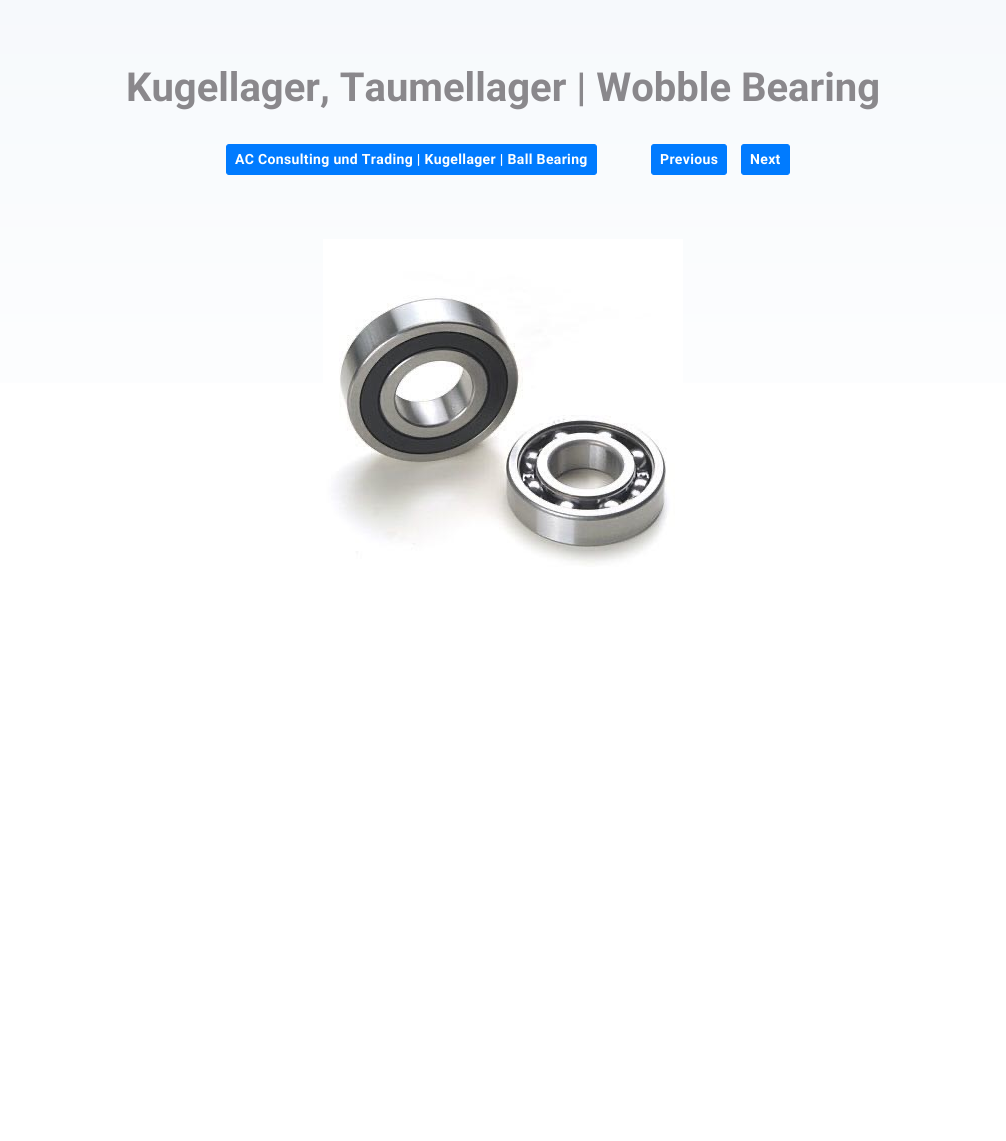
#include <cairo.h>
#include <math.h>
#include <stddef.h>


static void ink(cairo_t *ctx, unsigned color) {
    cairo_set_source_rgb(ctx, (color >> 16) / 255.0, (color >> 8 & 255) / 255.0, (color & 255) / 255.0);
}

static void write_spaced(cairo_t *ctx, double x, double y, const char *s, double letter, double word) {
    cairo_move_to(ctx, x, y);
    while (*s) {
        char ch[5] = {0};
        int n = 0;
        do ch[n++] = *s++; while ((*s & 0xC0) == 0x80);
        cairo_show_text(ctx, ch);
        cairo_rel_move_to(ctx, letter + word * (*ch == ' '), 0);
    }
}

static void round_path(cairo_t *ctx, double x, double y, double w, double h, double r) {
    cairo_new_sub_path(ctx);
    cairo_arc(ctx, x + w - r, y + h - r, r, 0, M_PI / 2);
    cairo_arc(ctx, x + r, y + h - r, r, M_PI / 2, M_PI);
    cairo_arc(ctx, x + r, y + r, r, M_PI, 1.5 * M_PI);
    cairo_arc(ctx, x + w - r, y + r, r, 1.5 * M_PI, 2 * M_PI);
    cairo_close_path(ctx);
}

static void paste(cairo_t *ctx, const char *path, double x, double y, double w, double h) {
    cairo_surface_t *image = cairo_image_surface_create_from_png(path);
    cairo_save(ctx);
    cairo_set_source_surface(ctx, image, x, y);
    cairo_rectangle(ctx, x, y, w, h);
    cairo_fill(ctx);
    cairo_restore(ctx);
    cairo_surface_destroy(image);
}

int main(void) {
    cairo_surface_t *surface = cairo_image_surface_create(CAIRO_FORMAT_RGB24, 1006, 1141);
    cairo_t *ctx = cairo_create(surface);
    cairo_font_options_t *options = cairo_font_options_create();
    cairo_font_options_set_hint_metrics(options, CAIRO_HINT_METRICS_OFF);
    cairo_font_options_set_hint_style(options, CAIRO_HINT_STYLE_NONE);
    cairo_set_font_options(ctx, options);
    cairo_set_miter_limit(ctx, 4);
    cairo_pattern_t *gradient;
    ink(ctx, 0xFFFFFF);
    cairo_paint(ctx);
    gradient = cairo_pattern_create_linear(503, 0, 503, 663);
    cairo_pattern_add_color_stop_rgba(gradient, 0, 0.965, 0.976, 0.988, 1);
    cairo_pattern_add_color_stop_rgba(gradient, 0.8, 1, 1, 1, 1);
    cairo_set_source(ctx, gradient);
    cairo_pattern_destroy(gradient);
    cairo_rectangle(ctx, 0, 0, 1006, 383);
    cairo_fill(ctx);
    cairo_select_font_face(ctx, "Roboto", CAIRO_FONT_SLANT_NORMAL, CAIRO_FONT_WEIGHT_BOLD);
    cairo_set_font_size(ctx, 40);
    ink(ctx, 0x8A888C);
    cairo_move_to(ctx, 126, 101);
    cairo_show_text(ctx, "Kugellager, Taumellager | Wobble Bearing");
    ink(ctx, 0x007BFF);
    round_path(ctx, 226.5, 144.5, 370, 30, 2.5);
    cairo_fill_preserve(ctx);
    cairo_set_line_width(ctx, 1);
    cairo_stroke(ctx);
    cairo_set_font_size(ctx, 14);
    ink(ctx, 0xFFFFFF);
    write_spaced(ctx, 235, 164, "AC Consulting und Trading | Kugellager | Ball Bearing", 0.35, 0);
    ink(ctx, 0x007BFF);
    round_path(ctx, 651.5, 144.5, 75, 30, 2.5);
    cairo_fill_preserve(ctx);
    cairo_stroke(ctx);
    ink(ctx, 0xFFFFFF);
    write_spaced(ctx, 660, 164, "Previous", 0.35, 0);
    ink(ctx, 0x007BFF);
    round_path(ctx, 741.5, 144.5, 48, 30, 2.5);
    cairo_fill_preserve(ctx);
    cairo_stroke(ctx);
    ink(ctx, 0xFFFFFF);
    write_spaced(ctx, 750, 164, "Next", 0.35, 0);
    paste(ctx, "media/1.png", 323, 239, 360, 328);
    cairo_surface_write_to_png(surface, "image.png");
    cairo_font_options_destroy(options);
    cairo_destroy(ctx);
    cairo_surface_destroy(surface);
    return 0;
}
